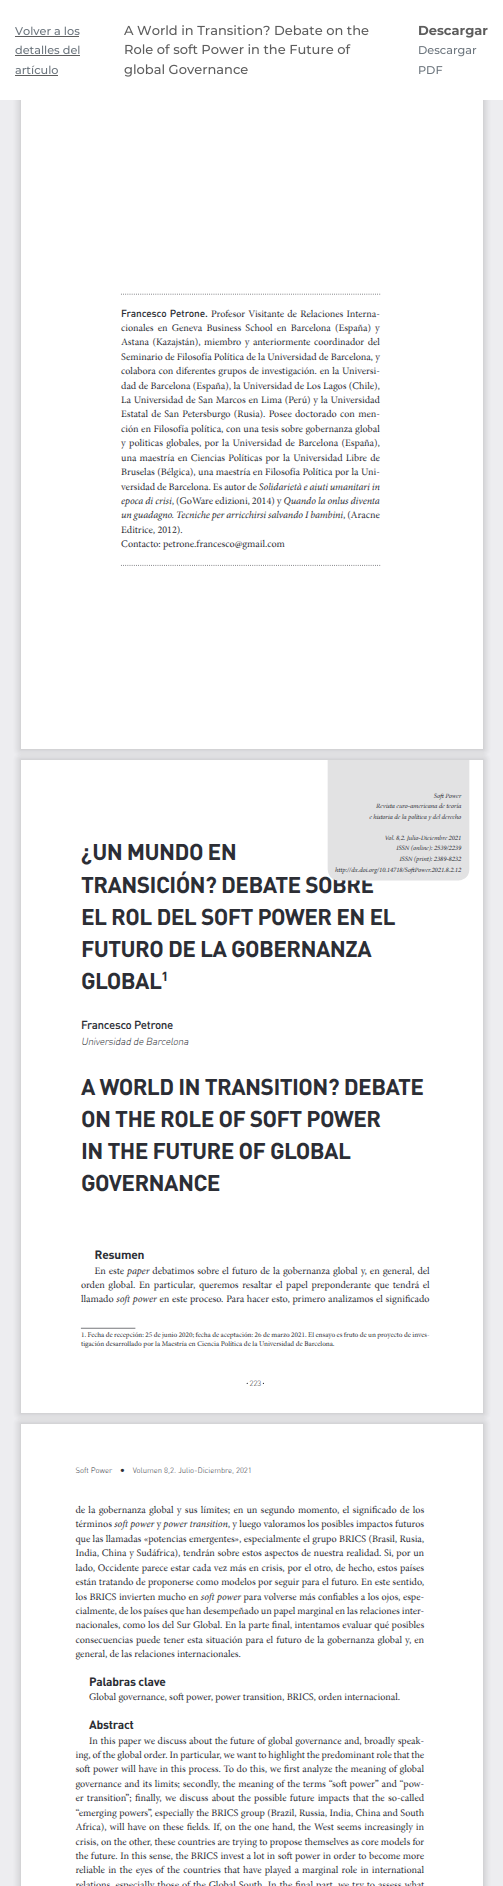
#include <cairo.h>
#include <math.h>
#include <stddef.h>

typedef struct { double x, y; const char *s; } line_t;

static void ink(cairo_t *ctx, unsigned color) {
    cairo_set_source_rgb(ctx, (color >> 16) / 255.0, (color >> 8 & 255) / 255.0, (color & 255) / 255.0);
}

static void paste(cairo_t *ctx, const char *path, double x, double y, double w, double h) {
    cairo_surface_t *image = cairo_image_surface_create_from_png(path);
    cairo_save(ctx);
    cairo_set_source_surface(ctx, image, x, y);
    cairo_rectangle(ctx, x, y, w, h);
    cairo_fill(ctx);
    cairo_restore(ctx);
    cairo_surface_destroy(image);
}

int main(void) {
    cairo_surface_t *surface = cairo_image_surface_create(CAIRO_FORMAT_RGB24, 503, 1886);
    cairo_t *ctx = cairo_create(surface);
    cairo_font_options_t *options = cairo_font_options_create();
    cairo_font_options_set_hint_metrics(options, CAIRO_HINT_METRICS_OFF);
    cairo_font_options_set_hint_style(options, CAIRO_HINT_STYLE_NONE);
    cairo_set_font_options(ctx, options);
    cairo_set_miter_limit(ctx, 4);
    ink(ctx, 0xFFFFFF);
    cairo_paint(ctx);
    cairo_select_font_face(ctx, "Montserrat Medium", CAIRO_FONT_SLANT_NORMAL, CAIRO_FONT_WEIGHT_NORMAL);
    cairo_set_font_size(ctx, 11.25);
    ink(ctx, 0x6C757D);
    cairo_move_to(ctx, 15, 35);
    cairo_show_text(ctx, "Volver a los");
    ink(ctx, 0x5D5D5D);
    cairo_rectangle(ctx, 15, 36, 64, 1);
    cairo_fill(ctx);
    ink(ctx, 0x6C757D);
    cairo_move_to(ctx, 15, 54);
    cairo_show_text(ctx, "detalles del");
    ink(ctx, 0x5D5D5D);
    cairo_rectangle(ctx, 15, 55, 65, 1);
    cairo_fill(ctx);
    ink(ctx, 0x6C757D);
    cairo_move_to(ctx, 15, 74);
    cairo_show_text(ctx, "artículo");
    ink(ctx, 0x5D5D5D);
    cairo_rectangle(ctx, 15, 75, 43, 1);
    cairo_fill(ctx);
    cairo_set_font_size(ctx, 13);
    {
        static const line_t items[] = {
            {124, 35, "A World in Transition? Debate on the"},
            {124, 54, "Role of soft Power in the Future of"},
            {124, 74, "global Governance"},
        };
        for (size_t i = 0; i < sizeof items / sizeof *items; i++) {
            cairo_move_to(ctx, items[i].x, items[i].y);
            cairo_show_text(ctx, items[i].s);
        }
    }
    cairo_select_font_face(ctx, "Montserrat", CAIRO_FONT_SLANT_NORMAL, CAIRO_FONT_WEIGHT_BOLD);
    cairo_move_to(ctx, 418, 35);
    cairo_show_text(ctx, "Descargar");
    cairo_select_font_face(ctx, "Montserrat Medium", CAIRO_FONT_SLANT_NORMAL, CAIRO_FONT_WEIGHT_NORMAL);
    cairo_set_font_size(ctx, 11.25);
    ink(ctx, 0x6C757D);
    cairo_move_to(ctx, 418, 54);
    cairo_show_text(ctx, "Descargar");
    cairo_move_to(ctx, 418, 74);
    cairo_show_text(ctx, "PDF");
    paste(ctx, "media/1.png", 0, 100, 503, 1786);
    cairo_surface_write_to_png(surface, "image.png");
    cairo_font_options_destroy(options);
    cairo_destroy(ctx);
    cairo_surface_destroy(surface);
    return 0;
}
